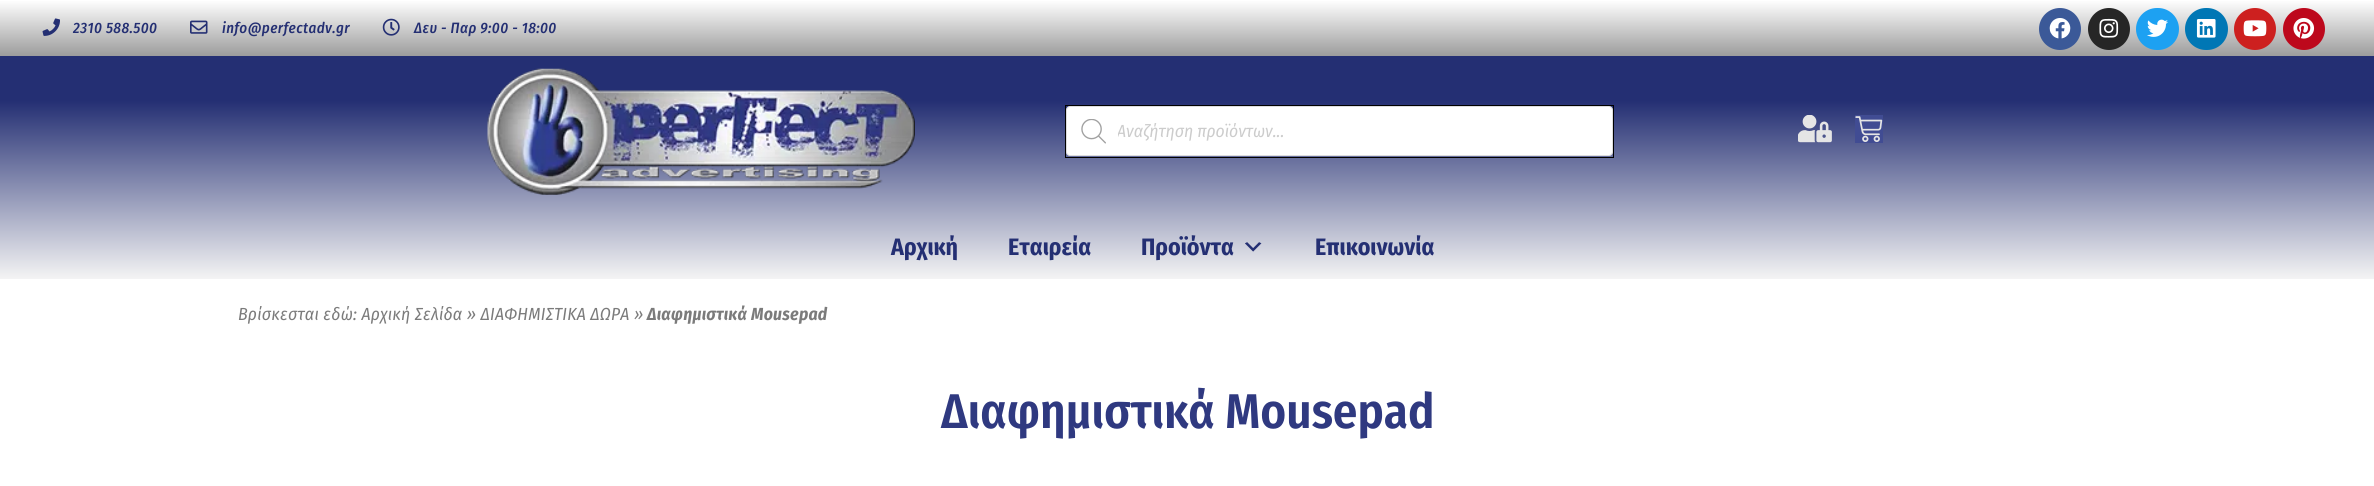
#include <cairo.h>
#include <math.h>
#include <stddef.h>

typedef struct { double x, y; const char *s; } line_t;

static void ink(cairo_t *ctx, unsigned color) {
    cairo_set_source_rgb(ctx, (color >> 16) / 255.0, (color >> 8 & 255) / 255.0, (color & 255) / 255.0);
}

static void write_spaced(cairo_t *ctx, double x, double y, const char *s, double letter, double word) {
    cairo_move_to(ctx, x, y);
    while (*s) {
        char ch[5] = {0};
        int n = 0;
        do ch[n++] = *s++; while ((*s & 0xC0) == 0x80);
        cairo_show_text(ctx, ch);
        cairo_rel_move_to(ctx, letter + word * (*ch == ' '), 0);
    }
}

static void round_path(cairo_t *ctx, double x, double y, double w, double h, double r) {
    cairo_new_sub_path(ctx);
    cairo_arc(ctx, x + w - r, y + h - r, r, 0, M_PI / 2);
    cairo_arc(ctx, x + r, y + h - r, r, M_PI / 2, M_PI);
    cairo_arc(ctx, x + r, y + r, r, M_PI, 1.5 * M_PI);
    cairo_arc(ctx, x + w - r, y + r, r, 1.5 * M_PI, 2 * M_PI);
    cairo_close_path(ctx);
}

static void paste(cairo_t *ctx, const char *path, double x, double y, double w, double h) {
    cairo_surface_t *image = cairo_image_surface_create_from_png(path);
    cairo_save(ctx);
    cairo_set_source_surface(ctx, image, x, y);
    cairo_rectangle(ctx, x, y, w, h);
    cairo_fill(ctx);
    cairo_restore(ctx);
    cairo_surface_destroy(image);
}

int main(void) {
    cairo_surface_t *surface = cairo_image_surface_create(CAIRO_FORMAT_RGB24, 2374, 486);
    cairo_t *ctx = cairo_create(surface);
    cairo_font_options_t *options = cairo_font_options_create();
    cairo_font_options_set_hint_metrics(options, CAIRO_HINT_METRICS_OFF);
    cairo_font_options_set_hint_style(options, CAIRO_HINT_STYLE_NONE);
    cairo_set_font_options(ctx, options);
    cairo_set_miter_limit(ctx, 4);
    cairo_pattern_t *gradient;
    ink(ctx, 0xFFFFFF);
    cairo_paint(ctx);
    gradient = cairo_pattern_create_linear(1188, 0, 1188, 56);
    cairo_pattern_add_color_stop_rgba(gradient, 0, 1, 1, 1, 1);
    cairo_pattern_add_color_stop_rgba(gradient, 1, 0.612, 0.612, 0.612, 1);
    cairo_set_source(ctx, gradient);
    cairo_pattern_destroy(gradient);
    cairo_rectangle(ctx, 0, 1, 2374, 55);
    cairo_fill(ctx);
    paste(ctx, "media/1.png", 42, 18, 18, 18);
    cairo_select_font_face(ctx, "Fira Sans Condensed Medium", CAIRO_FONT_SLANT_ITALIC, CAIRO_FONT_WEIGHT_NORMAL);
    cairo_set_font_size(ctx, 15);
    ink(ctx, 0x242F73);
    write_spaced(ctx, 73, 33, "2310 588.500", 0.4, 0);
    paste(ctx, "media/2.png", 190, 20, 18, 14);
    write_spaced(ctx, 222, 33, "info@perfectadv.gr", 0.4, 0);
    paste(ctx, "media/3.png", 382, 18, 18, 18);
    write_spaced(ctx, 414, 33, "Δευ - Παρ 9:00 - 18:00", 0.4, 0);
    ink(ctx, 0x3B5998);
    cairo_new_path(ctx);
    cairo_arc(ctx, 2060, 29, 21, 0, 2 * M_PI);
    cairo_fill(ctx);
    paste(ctx, "media/4.png", 2049, 18, 22, 21);
    ink(ctx, 0x262626);
    cairo_arc(ctx, 2109, 29, 21, 0, 2 * M_PI);
    cairo_fill(ctx);
    paste(ctx, "media/5.png", 2099, 18, 20, 20);
    ink(ctx, 0x1DA1F2);
    round_path(ctx, 2136, 8, 43, 42, 21);
    cairo_fill(ctx);
    paste(ctx, "media/6.png", 2147, 19, 21, 18);
    ink(ctx, 0x0077B5);
    round_path(ctx, 2185, 8, 43, 42, 21);
    cairo_fill(ctx);
    paste(ctx, "media/7.png", 2196, 19, 20, 19);
    ink(ctx, 0xCD201F);
    cairo_arc(ctx, 2255, 29, 21, 0, 2 * M_PI);
    cairo_fill(ctx);
    paste(ctx, "media/8.png", 2243, 20, 24, 17);
    ink(ctx, 0xBD081C);
    cairo_arc(ctx, 2304, 29, 21, 0, 2 * M_PI);
    cairo_fill(ctx);
    paste(ctx, "media/9.png", 2293, 18, 22, 21);
    gradient = cairo_pattern_create_linear(1188, 56, 1188, 279);
    cairo_pattern_add_color_stop_rgba(gradient, 0.2, 0.141, 0.184, 0.451, 1);
    cairo_pattern_add_color_stop_rgba(gradient, 1, 0.957, 0.957, 0.957, 1);
    cairo_set_source(ctx, gradient);
    cairo_pattern_destroy(gradient);
    cairo_rectangle(ctx, 0, 56, 2374, 223);
    cairo_fill(ctx);
    paste(ctx, "media/10.png", 487, 68, 428, 127);
    cairo_rectangle(ctx, 1065.5, 105.5, 548, 52);
    ink(ctx, 0x000000);
    cairo_set_line_width(ctx, 1);
    cairo_stroke(ctx);
    ink(ctx, 0xFFFFFF);
    round_path(ctx, 1066.5, 106.5, 546, 49, 3.5);
    cairo_fill_preserve(ctx);
    ink(ctx, 0xDDDDDD);
    cairo_stroke(ctx);
    paste(ctx, "media/11.png", 1081, 119, 25, 25);
    cairo_save(ctx);
    cairo_rectangle(ctx, 1118, 121, 475, 22);
    cairo_clip(ctx);
    cairo_select_font_face(ctx, "Fira Sans Condensed", CAIRO_FONT_SLANT_ITALIC, CAIRO_FONT_WEIGHT_NORMAL);
    cairo_set_font_size(ctx, 17.5);
    ink(ctx, 0xCCCCCC);
    cairo_move_to(ctx, 1117, 137);
    cairo_show_text(ctx, "Αναζήτηση προϊόντων...");
    cairo_restore(ctx);
    paste(ctx, "media/12.png", 1798, 115, 34, 28);
    ink(ctx, 0x414C93);
    cairo_rectangle(ctx, 1855, 115, 28, 28);
    cairo_fill(ctx);
    paste(ctx, "media/13.png", 1855, 116, 28, 26);
    cairo_select_font_face(ctx, "Fira Sans Condensed", CAIRO_FONT_SLANT_NORMAL, CAIRO_FONT_WEIGHT_BOLD);
    cairo_set_font_size(ctx, 23.75);
    ink(ctx, 0x242F73);
    {
        static const line_t items[] = {
            {891, 255, "Αρχική"},
            {1008, 255, "Εταιρεία"},
            {1141, 255, "Προϊόντα"},
        };
        for (size_t i = 0; i < sizeof items / sizeof *items; i++) {
            cairo_move_to(ctx, items[i].x, items[i].y);
            cairo_show_text(ctx, items[i].s);
        }
    }
    paste(ctx, "media/14.png", 1245, 242, 17, 10);
    cairo_move_to(ctx, 1315, 255);
    cairo_show_text(ctx, "Επικοινωνία");
    cairo_select_font_face(ctx, "Fira Sans Condensed", CAIRO_FONT_SLANT_ITALIC, CAIRO_FONT_WEIGHT_NORMAL);
    cairo_set_font_size(ctx, 17.5);
    ink(ctx, 0x7B7B7B);
    write_spaced(ctx, 238, 320, "Βρίσκεσται εδώ: Αρχική Σελίδα » ΔΙΑΦΗΜΙΣΤΙΚΑ ΔΩΡΑ »", 0.25, 0);
    cairo_select_font_face(ctx, "Fira Sans Condensed", CAIRO_FONT_SLANT_ITALIC, CAIRO_FONT_WEIGHT_BOLD);
    write_spaced(ctx, 647, 320, "Διαφημιστικά Mousepad", 0.25, 0);
    cairo_select_font_face(ctx, "Fira Sans Condensed SemiBold", CAIRO_FONT_SLANT_NORMAL, CAIRO_FONT_WEIGHT_NORMAL);
    cairo_set_font_size(ctx, 48.75);
    ink(ctx, 0x2F3980);
    cairo_move_to(ctx, 941, 428);
    cairo_show_text(ctx, "Διαφημιστικά Mousepad");
    cairo_surface_write_to_png(surface, "image.png");
    cairo_font_options_destroy(options);
    cairo_destroy(ctx);
    cairo_surface_destroy(surface);
    return 0;
}
